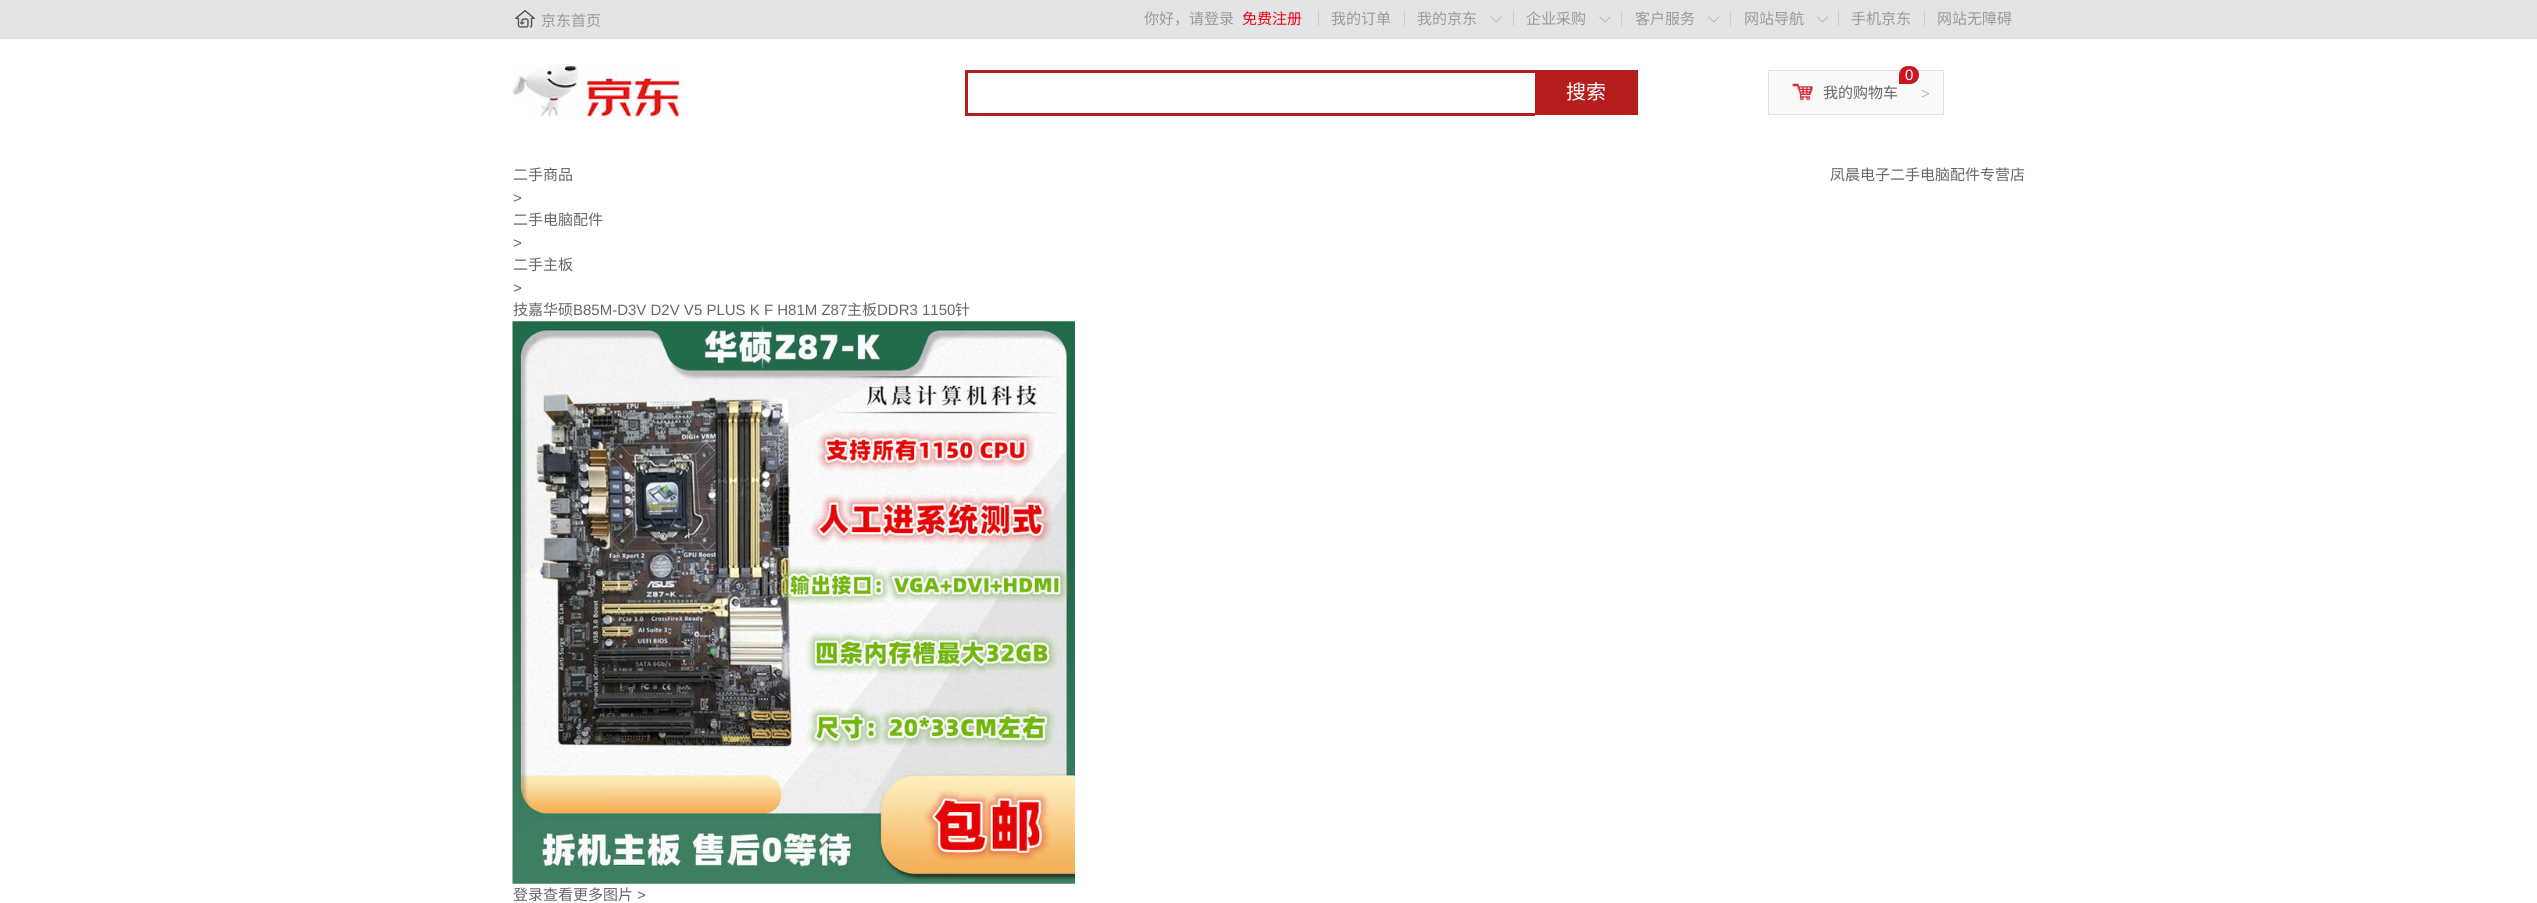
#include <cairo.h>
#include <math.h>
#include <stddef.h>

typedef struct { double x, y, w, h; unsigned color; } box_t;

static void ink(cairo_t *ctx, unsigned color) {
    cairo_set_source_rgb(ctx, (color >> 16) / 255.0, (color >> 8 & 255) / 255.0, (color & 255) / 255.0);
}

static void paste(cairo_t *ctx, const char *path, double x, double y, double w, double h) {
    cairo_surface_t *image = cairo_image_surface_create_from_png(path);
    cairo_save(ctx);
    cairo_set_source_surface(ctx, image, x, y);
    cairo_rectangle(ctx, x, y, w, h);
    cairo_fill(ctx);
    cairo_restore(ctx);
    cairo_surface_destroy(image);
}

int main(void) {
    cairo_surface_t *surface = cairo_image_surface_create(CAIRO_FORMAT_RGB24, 2537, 903);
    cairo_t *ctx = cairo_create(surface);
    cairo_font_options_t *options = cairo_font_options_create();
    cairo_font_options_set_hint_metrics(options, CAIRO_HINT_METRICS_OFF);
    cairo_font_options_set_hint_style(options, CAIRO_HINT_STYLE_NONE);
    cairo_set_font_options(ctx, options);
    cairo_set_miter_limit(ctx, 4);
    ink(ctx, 0xFFFFFF);
    cairo_paint(ctx);
    ink(ctx, 0xE3E4E5);
    cairo_rectangle(ctx, 0, 0, 2537, 38);
    cairo_fill(ctx);
    ink(ctx, 0xDDDDDD);
    cairo_rectangle(ctx, 0, 38, 2537, 1);
    cairo_fill(ctx);
    paste(ctx, "media/1.png", 515, 10, 20, 18);
    cairo_select_font_face(ctx, "Noto Sans CJK SC", CAIRO_FONT_SLANT_NORMAL, CAIRO_FONT_WEIGHT_NORMAL);
    cairo_set_font_size(ctx, 15);
    ink(ctx, 0x999999);
    cairo_move_to(ctx, 541, 26);
    cairo_show_text(ctx, "京东首页");
    cairo_move_to(ctx, 1144, 24);
    cairo_show_text(ctx, "你好，请登录");
    ink(ctx, 0xF30213);
    cairo_move_to(ctx, 1242, 24);
    cairo_show_text(ctx, "免费注册");
    ink(ctx, 0xCCCCCC);
    cairo_rectangle(ctx, 1318, 11, 1, 15);
    cairo_fill(ctx);
    ink(ctx, 0x999999);
    cairo_move_to(ctx, 1331, 24);
    cairo_show_text(ctx, "我的订单");
    ink(ctx, 0xCCCCCC);
    cairo_rectangle(ctx, 1404, 11, 1, 15);
    cairo_fill(ctx);
    ink(ctx, 0x999999);
    cairo_move_to(ctx, 1417, 24);
    cairo_show_text(ctx, "我的京东");
    paste(ctx, "media/2.png", 1490, 16, 12, 7);
    ink(ctx, 0xCCCCCC);
    cairo_rectangle(ctx, 1513, 11, 1, 15);
    cairo_fill(ctx);
    ink(ctx, 0x999999);
    cairo_move_to(ctx, 1526, 24);
    cairo_show_text(ctx, "企业采购");
    paste(ctx, "media/3.png", 1599, 16, 12, 6);
    ink(ctx, 0xCCCCCC);
    cairo_rectangle(ctx, 1621, 11, 1, 15);
    cairo_fill(ctx);
    ink(ctx, 0x999999);
    cairo_move_to(ctx, 1635, 24);
    cairo_show_text(ctx, "客户服务");
    paste(ctx, "media/4.png", 1708, 16, 12, 7);
    ink(ctx, 0xCCCCCC);
    cairo_rectangle(ctx, 1730, 11, 1, 15);
    cairo_fill(ctx);
    ink(ctx, 0x999999);
    cairo_move_to(ctx, 1744, 24);
    cairo_show_text(ctx, "网站导航");
    paste(ctx, "media/5.png", 1817, 16, 11, 7);
    ink(ctx, 0xCCCCCC);
    cairo_rectangle(ctx, 1838, 11, 1, 15);
    cairo_fill(ctx);
    ink(ctx, 0x999999);
    cairo_move_to(ctx, 1851, 24);
    cairo_show_text(ctx, "手机京东");
    ink(ctx, 0xCCCCCC);
    cairo_rectangle(ctx, 1924, 11, 1, 15);
    cairo_fill(ctx);
    ink(ctx, 0x999999);
    cairo_move_to(ctx, 1937, 24);
    cairo_show_text(ctx, "网站无障碍");
    paste(ctx, "media/6.png", 512, 64, 168, 53);
    {
        static const box_t items[] = {
            {965, 70, 570, 3, 0xB61D1D},
            {965, 113, 570, 3, 0xB61D1D},
            {965, 70, 3, 45, 0xB61D1D},
            {1535, 70, 103, 45, 0xB61D1D},
        };
        for (size_t i = 0; i < sizeof items / sizeof *items; i++) {
            ink(ctx, items[i].color);
            cairo_rectangle(ctx, items[i].x, items[i].y, items[i].w, items[i].h);
            cairo_fill(ctx);
        }
    }
    cairo_set_font_size(ctx, 20);
    ink(ctx, 0xFFFFFF);
    cairo_move_to(ctx, 1566, 99);
    cairo_show_text(ctx, "搜索");
    ink(ctx, 0xF9F9F9);
    cairo_rectangle(ctx, 1768.5, 70.5, 175, 44);
    cairo_fill_preserve(ctx);
    ink(ctx, 0xDFDFDF);
    cairo_set_line_width(ctx, 1);
    cairo_stroke(ctx);
    ink(ctx, 0xC81623);
    cairo_new_path(ctx);
    cairo_move_to(ctx, 1908, 66);
    cairo_line_to(ctx, 1910, 66);
    cairo_curve_to(ctx, 1915, 66, 1919, 70, 1919, 75);
    cairo_curve_to(ctx, 1919, 80, 1915, 84, 1910, 84);
    cairo_line_to(ctx, 1899, 84);
    cairo_line_to(ctx, 1899, 75);
    cairo_curve_to(ctx, 1899, 70, 1903, 66, 1908, 66);
    cairo_close_path(ctx);
    cairo_fill(ctx);
    cairo_select_font_face(ctx, "Liberation Sans", CAIRO_FONT_SLANT_NORMAL, CAIRO_FONT_WEIGHT_NORMAL);
    cairo_set_font_size(ctx, 15);
    ink(ctx, 0xFFFFFF);
    cairo_move_to(ctx, 1905, 80);
    cairo_show_text(ctx, "0");
    paste(ctx, "media/7.png", 1792, 83, 21, 18);
    cairo_select_font_face(ctx, "Noto Sans CJK SC", CAIRO_FONT_SLANT_NORMAL, CAIRO_FONT_WEIGHT_NORMAL);
    ink(ctx, 0x666666);
    cairo_move_to(ctx, 1823, 98);
    cairo_show_text(ctx, "我的购物车");
    cairo_select_font_face(ctx, "Liberation Serif", CAIRO_FONT_SLANT_NORMAL, CAIRO_FONT_WEIGHT_NORMAL);
    cairo_set_font_size(ctx, 16);
    ink(ctx, 0x999999);
    cairo_move_to(ctx, 1921, 99);
    cairo_show_text(ctx, ">");
    cairo_select_font_face(ctx, "Noto Sans CJK SC", CAIRO_FONT_SLANT_NORMAL, CAIRO_FONT_WEIGHT_NORMAL);
    cairo_set_font_size(ctx, 15);
    ink(ctx, 0x666666);
    cairo_move_to(ctx, 513, 180);
    cairo_show_text(ctx, "二手商品");
    cairo_select_font_face(ctx, "Liberation Sans", CAIRO_FONT_SLANT_NORMAL, CAIRO_FONT_WEIGHT_NORMAL);
    cairo_move_to(ctx, 513, 203);
    cairo_show_text(ctx, ">");
    cairo_select_font_face(ctx, "Noto Sans CJK SC", CAIRO_FONT_SLANT_NORMAL, CAIRO_FONT_WEIGHT_NORMAL);
    cairo_move_to(ctx, 513, 225);
    cairo_show_text(ctx, "二手电脑配件");
    cairo_select_font_face(ctx, "Liberation Sans", CAIRO_FONT_SLANT_NORMAL, CAIRO_FONT_WEIGHT_NORMAL);
    cairo_move_to(ctx, 513, 248);
    cairo_show_text(ctx, ">");
    cairo_select_font_face(ctx, "Noto Sans CJK SC", CAIRO_FONT_SLANT_NORMAL, CAIRO_FONT_WEIGHT_NORMAL);
    cairo_move_to(ctx, 513, 270);
    cairo_show_text(ctx, "二手主板");
    cairo_select_font_face(ctx, "Liberation Sans", CAIRO_FONT_SLANT_NORMAL, CAIRO_FONT_WEIGHT_NORMAL);
    cairo_move_to(ctx, 513, 293);
    cairo_show_text(ctx, ">");
    cairo_select_font_face(ctx, "Noto Sans CJK SC", CAIRO_FONT_SLANT_NORMAL, CAIRO_FONT_WEIGHT_NORMAL);
    cairo_move_to(ctx, 513, 315);
    cairo_show_text(ctx, "技嘉华硕");
    cairo_select_font_face(ctx, "Liberation Sans", CAIRO_FONT_SLANT_NORMAL, CAIRO_FONT_WEIGHT_NORMAL);
    cairo_move_to(ctx, 573, 315);
    cairo_show_text(ctx, "B85M-D3V D2V V5 PLUS K F H81M Z87");
    cairo_select_font_face(ctx, "Noto Sans CJK SC", CAIRO_FONT_SLANT_NORMAL, CAIRO_FONT_WEIGHT_NORMAL);
    cairo_move_to(ctx, 847, 315);
    cairo_show_text(ctx, "主板");
    cairo_select_font_face(ctx, "Liberation Sans", CAIRO_FONT_SLANT_NORMAL, CAIRO_FONT_WEIGHT_NORMAL);
    cairo_move_to(ctx, 877, 315);
    cairo_show_text(ctx, "DDR3 1150");
    cairo_select_font_face(ctx, "Noto Sans CJK SC", CAIRO_FONT_SLANT_NORMAL, CAIRO_FONT_WEIGHT_NORMAL);
    cairo_move_to(ctx, 955, 315);
    cairo_show_text(ctx, "针");
    cairo_move_to(ctx, 1830, 180);
    cairo_show_text(ctx, "凤晨电子二手电脑配件专营店");
    paste(ctx, "media/8.png", 512, 321, 563, 563);
    cairo_move_to(ctx, 513, 900);
    cairo_show_text(ctx, "登录查看更多图片");
    cairo_select_font_face(ctx, "Liberation Sans", CAIRO_FONT_SLANT_NORMAL, CAIRO_FONT_WEIGHT_NORMAL);
    cairo_move_to(ctx, 637, 900);
    cairo_show_text(ctx, ">");
    cairo_surface_write_to_png(surface, "image.png");
    cairo_font_options_destroy(options);
    cairo_destroy(ctx);
    cairo_surface_destroy(surface);
    return 0;
}
